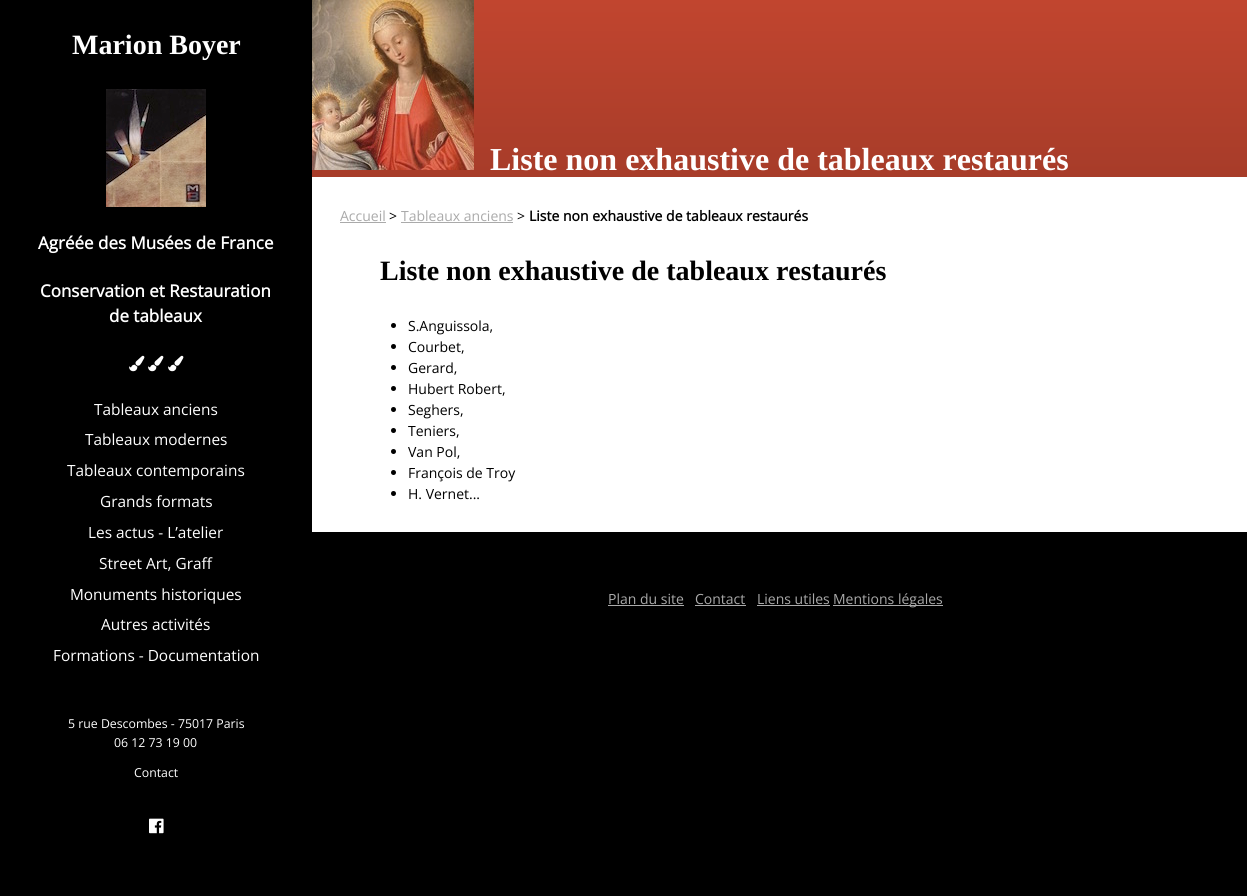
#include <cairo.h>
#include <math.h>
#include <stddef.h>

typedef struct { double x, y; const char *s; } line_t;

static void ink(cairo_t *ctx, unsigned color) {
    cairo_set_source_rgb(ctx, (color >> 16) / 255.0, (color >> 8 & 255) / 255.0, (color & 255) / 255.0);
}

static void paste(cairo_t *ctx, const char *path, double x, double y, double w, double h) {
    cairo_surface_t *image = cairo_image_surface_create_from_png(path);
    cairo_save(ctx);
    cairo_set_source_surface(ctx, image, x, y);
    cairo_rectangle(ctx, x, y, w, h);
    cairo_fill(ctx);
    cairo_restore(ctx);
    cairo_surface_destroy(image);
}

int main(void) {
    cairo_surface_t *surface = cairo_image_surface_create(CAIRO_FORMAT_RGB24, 1247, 896);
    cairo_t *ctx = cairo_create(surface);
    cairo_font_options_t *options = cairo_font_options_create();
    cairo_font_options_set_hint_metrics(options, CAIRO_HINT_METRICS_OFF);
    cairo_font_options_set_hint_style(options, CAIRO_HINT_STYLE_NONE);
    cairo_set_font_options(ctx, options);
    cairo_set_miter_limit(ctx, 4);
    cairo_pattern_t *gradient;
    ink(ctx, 0x000000);
    cairo_paint(ctx);
    cairo_select_font_face(ctx, "Liberation Serif", CAIRO_FONT_SLANT_NORMAL, CAIRO_FONT_WEIGHT_BOLD);
    cairo_set_font_size(ctx, 28);
    ink(ctx, 0xFFFFFF);
    cairo_move_to(ctx, 72, 54);
    cairo_show_text(ctx, "Marion Boyer");
    paste(ctx, "media/1.png", 106, 89, 100, 118);
    cairo_select_font_face(ctx, "Open Sans", CAIRO_FONT_SLANT_NORMAL, CAIRO_FONT_WEIGHT_BOLD);
    cairo_set_font_size(ctx, 17);
    {
        static const line_t items[] = {
            {38, 249, "Agréée des Musées de France"},
            {40, 297, "Conservation et Restauration"},
            {109, 322, "de tableaux"},
        };
        for (size_t i = 0; i < sizeof items / sizeof *items; i++) {
            cairo_move_to(ctx, items[i].x, items[i].y);
            cairo_show_text(ctx, items[i].s);
        }
    }
    paste(ctx, "media/2.png", 129, 355, 16, 17);
    paste(ctx, "media/2.png", 148, 355, 16, 17);
    paste(ctx, "media/2.png", 168, 355, 16, 17);
    cairo_select_font_face(ctx, "Open Sans", CAIRO_FONT_SLANT_NORMAL, CAIRO_FONT_WEIGHT_NORMAL);
    cairo_set_font_size(ctx, 15.4);
    {
        static const line_t items[] = {
            {94, 415, "Tableaux anciens"},
            {85, 445, "Tableaux modernes"},
            {67, 476, "Tableaux contemporains"},
            {100, 507, "Grands formats"},
            {88, 538, "Les actus - L’atelier"},
            {99, 569, "Street Art, Graff"},
            {70, 600, "Monuments historiques"},
            {101, 630, "Autres activités"},
            {53, 661, "Formations - Documentation"},
        };
        for (size_t i = 0; i < sizeof items / sizeof *items; i++) {
            cairo_move_to(ctx, items[i].x, items[i].y);
            cairo_show_text(ctx, items[i].s);
        }
    }
    cairo_set_font_size(ctx, 12.3);
    {
        static const line_t items[] = {
            {68, 728, "5 rue Descombes - 75017 Paris"},
            {114, 747, "06 12 73 19 00"},
            {134, 777, "Contact"},
        };
        for (size_t i = 0; i < sizeof items / sizeof *items; i++) {
            cairo_move_to(ctx, items[i].x, items[i].y);
            cairo_show_text(ctx, items[i].s);
        }
    }
    paste(ctx, "media/3.png", 149, 818, 15, 16);
    gradient = cairo_pattern_create_linear(780, 0, 780, 177);
    cairo_pattern_add_color_stop_rgba(gradient, 0, 0.757, 0.271, 0.184, 1);
    cairo_pattern_add_color_stop_rgba(gradient, 1, 0.655, 0.235, 0.161, 1);
    cairo_set_source(ctx, gradient);
    cairo_pattern_destroy(gradient);
    cairo_rectangle(ctx, 312, 0, 935, 177);
    cairo_fill(ctx);
    paste(ctx, "media/4.png", 312, 0, 162, 170);
    cairo_select_font_face(ctx, "Liberation Serif", CAIRO_FONT_SLANT_NORMAL, CAIRO_FONT_WEIGHT_BOLD);
    cairo_set_font_size(ctx, 32);
    ink(ctx, 0xFFFFFF);
    cairo_move_to(ctx, 490, 170);
    cairo_show_text(ctx, "Liste non exhaustive de tableaux restaurés");
    cairo_rectangle(ctx, 312, 177, 935, 355);
    cairo_fill(ctx);
    cairo_select_font_face(ctx, "Open Sans", CAIRO_FONT_SLANT_NORMAL, CAIRO_FONT_WEIGHT_NORMAL);
    cairo_set_font_size(ctx, 14);
    ink(ctx, 0xAAAAAA);
    cairo_move_to(ctx, 340, 221);
    cairo_show_text(ctx, "Accueil");
    cairo_rectangle(ctx, 340, 222, 46, 1);
    cairo_fill(ctx);
    ink(ctx, 0x000000);
    cairo_move_to(ctx, 389, 221);
    cairo_show_text(ctx, ">");
    ink(ctx, 0xAAAAAA);
    cairo_move_to(ctx, 401, 221);
    cairo_show_text(ctx, "Tableaux anciens");
    cairo_rectangle(ctx, 401, 222, 112, 1);
    cairo_fill(ctx);
    ink(ctx, 0x000000);
    cairo_move_to(ctx, 517, 221);
    cairo_show_text(ctx, ">");
    cairo_select_font_face(ctx, "Open Sans", CAIRO_FONT_SLANT_NORMAL, CAIRO_FONT_WEIGHT_BOLD);
    cairo_move_to(ctx, 529, 221);
    cairo_show_text(ctx, "Liste non exhaustive de tableaux restaurés");
    cairo_select_font_face(ctx, "Liberation Serif", CAIRO_FONT_SLANT_NORMAL, CAIRO_FONT_WEIGHT_BOLD);
    cairo_set_font_size(ctx, 28);
    cairo_move_to(ctx, 380, 280);
    cairo_show_text(ctx, "Liste non exhaustive de tableaux restaurés");
    cairo_new_path(ctx);
    cairo_arc(ctx, 393.5, 325.5, 2.5, 0, 2 * M_PI);
    cairo_fill(ctx);
    cairo_select_font_face(ctx, "Open Sans", CAIRO_FONT_SLANT_NORMAL, CAIRO_FONT_WEIGHT_NORMAL);
    cairo_set_font_size(ctx, 14);
    cairo_move_to(ctx, 408, 331);
    cairo_show_text(ctx, "S.Anguissola,");
    cairo_new_path(ctx);
    cairo_arc(ctx, 393.5, 346.5, 2.5, 0, 2 * M_PI);
    cairo_fill(ctx);
    cairo_move_to(ctx, 408, 352);
    cairo_show_text(ctx, "Courbet,");
    cairo_new_path(ctx);
    cairo_arc(ctx, 393.5, 367.5, 2.5, 0, 2 * M_PI);
    cairo_fill(ctx);
    cairo_move_to(ctx, 408, 373);
    cairo_show_text(ctx, "Gerard,");
    cairo_new_path(ctx);
    cairo_arc(ctx, 393.5, 388.5, 2.5, 0, 2 * M_PI);
    cairo_fill(ctx);
    cairo_move_to(ctx, 408, 394);
    cairo_show_text(ctx, "Hubert Robert,");
    cairo_new_path(ctx);
    cairo_arc(ctx, 393.5, 409.5, 2.5, 0, 2 * M_PI);
    cairo_fill(ctx);
    cairo_move_to(ctx, 408, 415);
    cairo_show_text(ctx, "Seghers,");
    cairo_new_path(ctx);
    cairo_arc(ctx, 393.5, 430.5, 2.5, 0, 2 * M_PI);
    cairo_fill(ctx);
    cairo_move_to(ctx, 408, 436);
    cairo_show_text(ctx, "Teniers,");
    cairo_new_path(ctx);
    cairo_arc(ctx, 393.5, 451.5, 2.5, 0, 2 * M_PI);
    cairo_fill(ctx);
    cairo_move_to(ctx, 408, 457);
    cairo_show_text(ctx, "Van Pol,");
    cairo_new_path(ctx);
    cairo_arc(ctx, 393.5, 472.5, 2.5, 0, 2 * M_PI);
    cairo_fill(ctx);
    cairo_move_to(ctx, 408, 478);
    cairo_show_text(ctx, "François de Troy");
    cairo_new_path(ctx);
    cairo_arc(ctx, 393.5, 493.5, 2.5, 0, 2 * M_PI);
    cairo_fill(ctx);
    cairo_move_to(ctx, 408, 499);
    cairo_show_text(ctx, "H. Vernet...");
    ink(ctx, 0xAAAAAA);
    cairo_move_to(ctx, 608, 604);
    cairo_show_text(ctx, "Plan du site");
    cairo_rectangle(ctx, 608, 605, 76, 1);
    cairo_fill(ctx);
    cairo_move_to(ctx, 695, 604);
    cairo_show_text(ctx, "Contact");
    cairo_rectangle(ctx, 695, 605, 51, 1);
    cairo_fill(ctx);
    cairo_move_to(ctx, 757, 604);
    cairo_show_text(ctx, "Liens utiles");
    cairo_rectangle(ctx, 757, 605, 73, 1);
    cairo_fill(ctx);
    cairo_rectangle(ctx, 833, 605, 110, 1);
    cairo_fill(ctx);
    cairo_move_to(ctx, 833, 604);
    cairo_show_text(ctx, "Mentions légales");
    cairo_surface_write_to_png(surface, "image.png");
    cairo_font_options_destroy(options);
    cairo_destroy(ctx);
    cairo_surface_destroy(surface);
    return 0;
}
